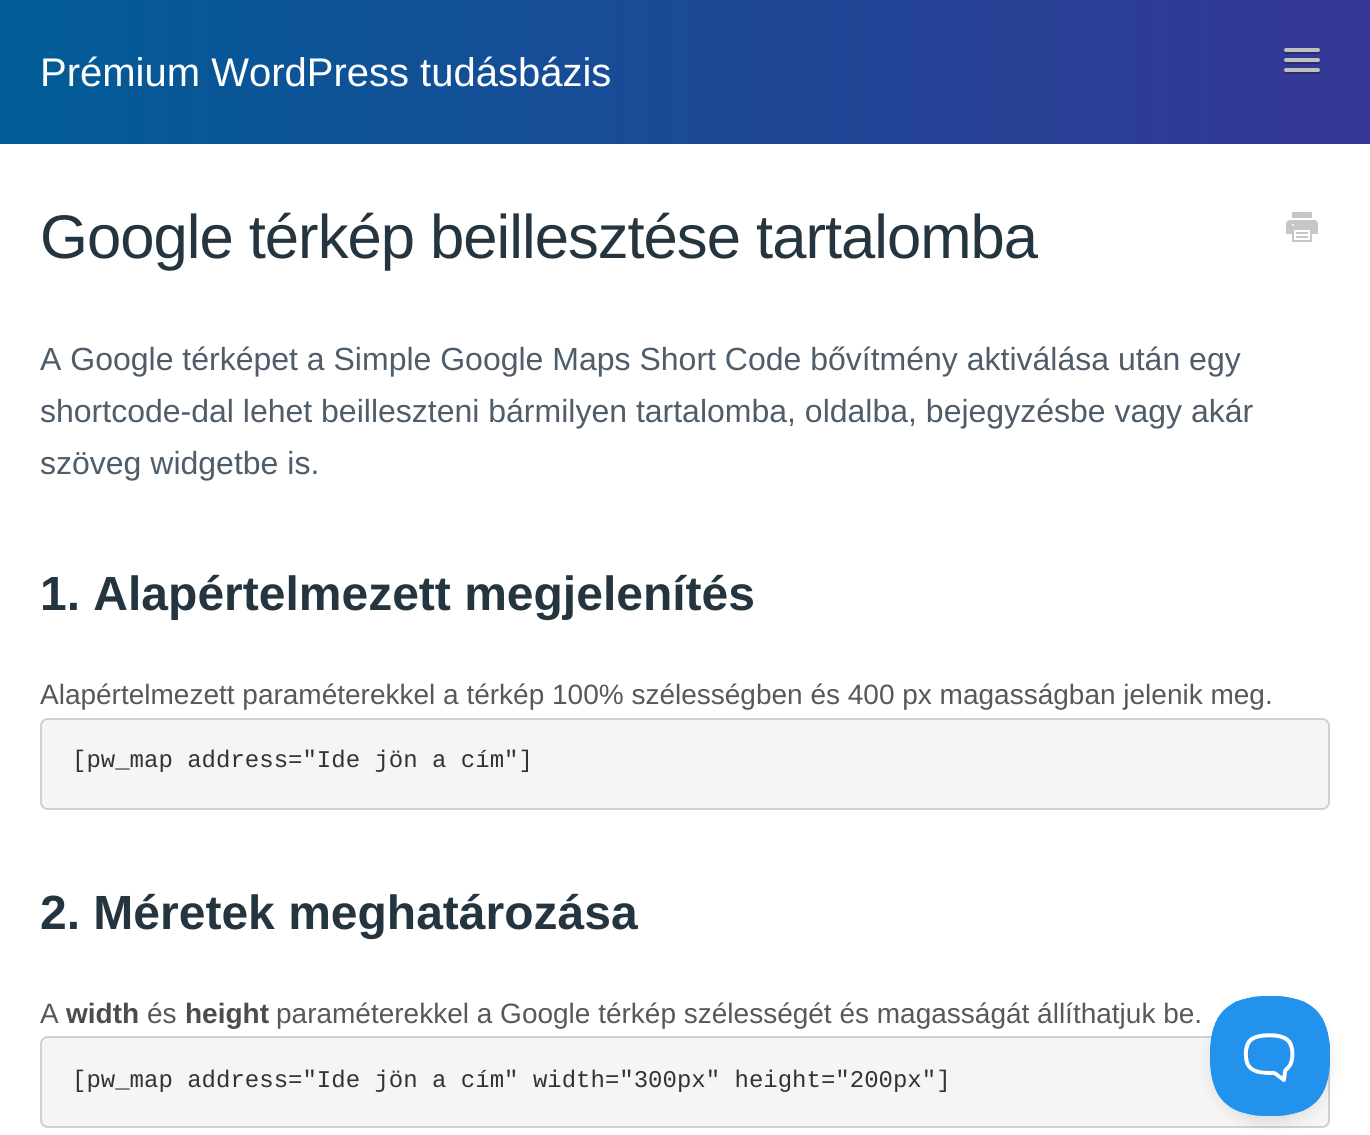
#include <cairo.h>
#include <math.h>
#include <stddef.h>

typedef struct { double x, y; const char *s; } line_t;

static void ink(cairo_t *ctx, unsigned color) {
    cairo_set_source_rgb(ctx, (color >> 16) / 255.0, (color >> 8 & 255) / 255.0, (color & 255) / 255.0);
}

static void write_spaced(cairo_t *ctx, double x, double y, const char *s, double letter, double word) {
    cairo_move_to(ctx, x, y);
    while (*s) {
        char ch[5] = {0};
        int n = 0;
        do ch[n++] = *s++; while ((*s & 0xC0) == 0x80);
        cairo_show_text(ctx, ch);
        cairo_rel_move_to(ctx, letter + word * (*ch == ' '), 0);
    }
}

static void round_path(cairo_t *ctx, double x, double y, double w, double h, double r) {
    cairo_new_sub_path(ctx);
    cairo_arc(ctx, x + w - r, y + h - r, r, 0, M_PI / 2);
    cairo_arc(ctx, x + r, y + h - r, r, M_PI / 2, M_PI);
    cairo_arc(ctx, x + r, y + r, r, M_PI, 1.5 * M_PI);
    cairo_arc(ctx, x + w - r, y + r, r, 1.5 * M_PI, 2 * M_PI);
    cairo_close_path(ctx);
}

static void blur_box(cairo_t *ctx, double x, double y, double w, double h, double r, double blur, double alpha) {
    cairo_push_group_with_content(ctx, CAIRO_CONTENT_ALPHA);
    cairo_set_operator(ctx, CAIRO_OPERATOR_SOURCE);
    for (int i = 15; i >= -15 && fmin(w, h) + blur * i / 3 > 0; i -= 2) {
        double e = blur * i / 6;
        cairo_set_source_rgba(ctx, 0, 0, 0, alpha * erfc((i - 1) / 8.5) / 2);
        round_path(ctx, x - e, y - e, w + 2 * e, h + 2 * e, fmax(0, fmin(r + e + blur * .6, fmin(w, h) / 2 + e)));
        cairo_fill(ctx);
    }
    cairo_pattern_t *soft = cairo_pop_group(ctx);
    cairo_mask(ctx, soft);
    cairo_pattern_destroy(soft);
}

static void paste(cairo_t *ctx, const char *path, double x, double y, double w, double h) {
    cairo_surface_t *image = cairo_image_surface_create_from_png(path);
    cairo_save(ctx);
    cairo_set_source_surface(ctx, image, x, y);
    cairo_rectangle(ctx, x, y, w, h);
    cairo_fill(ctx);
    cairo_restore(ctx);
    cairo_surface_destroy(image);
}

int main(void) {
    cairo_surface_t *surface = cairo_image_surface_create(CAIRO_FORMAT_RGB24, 1370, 1135);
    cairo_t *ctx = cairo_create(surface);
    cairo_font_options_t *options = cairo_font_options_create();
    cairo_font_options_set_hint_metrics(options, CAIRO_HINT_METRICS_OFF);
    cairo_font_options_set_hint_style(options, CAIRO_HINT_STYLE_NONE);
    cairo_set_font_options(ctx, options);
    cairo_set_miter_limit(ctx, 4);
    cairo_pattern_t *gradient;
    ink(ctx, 0xFFFFFF);
    cairo_paint(ctx);
    gradient = cairo_pattern_create_linear(0, 72, 1370, 72);
    cairo_pattern_add_color_stop_rgba(gradient, 0, 0, 0.361, 0.592, 1);
    cairo_pattern_add_color_stop_rgba(gradient, 1, 0.212, 0.216, 0.584, 1);
    cairo_set_source(ctx, gradient);
    cairo_pattern_destroy(gradient);
    cairo_rectangle(ctx, 0, 0, 1370, 144);
    cairo_fill(ctx);
    cairo_select_font_face(ctx, "Liberation Sans", CAIRO_FONT_SLANT_NORMAL, CAIRO_FONT_WEIGHT_NORMAL);
    cairo_set_font_size(ctx, 40);
    ink(ctx, 0xFFFFFF);
    cairo_move_to(ctx, 40, 86);
    cairo_show_text(ctx, "Prémium WordPress tudásbázis");
    ink(ctx, 0x272B70);
    cairo_new_path(ctx);
    cairo_move_to(ctx, 1284.5, 51);
    cairo_curve_to(ctx, 1282, 55, 1291, 54, 1291.5, 54);
    cairo_line_to(ctx, 1312.5, 54);
    cairo_curve_to(ctx, 1313, 54, 1322, 55, 1319.5, 51);
    cairo_curve_to(ctx, 1319.5, 51.5, 1318.5, 52, 1318, 52);
    cairo_line_to(ctx, 1286, 52);
    cairo_curve_to(ctx, 1285.5, 52, 1284.5, 51.5, 1284.5, 51);
    cairo_close_path(ctx);
    cairo_fill(ctx);
    ink(ctx, 0xC0C0C0);
    round_path(ctx, 1284, 48, 36, 4, 2);
    cairo_fill(ctx);
    ink(ctx, 0x272B70);
    cairo_new_path(ctx);
    cairo_move_to(ctx, 1284.5, 61);
    cairo_curve_to(ctx, 1282, 65, 1291, 64, 1291.5, 64);
    cairo_line_to(ctx, 1312.5, 64);
    cairo_curve_to(ctx, 1313, 64, 1322, 65, 1319.5, 61);
    cairo_curve_to(ctx, 1319.5, 61.5, 1318.5, 62, 1318, 62);
    cairo_line_to(ctx, 1286, 62);
    cairo_curve_to(ctx, 1285.5, 62, 1284.5, 61.5, 1284.5, 61);
    cairo_close_path(ctx);
    cairo_fill(ctx);
    ink(ctx, 0xC0C0C0);
    round_path(ctx, 1284, 58, 36, 4, 2);
    cairo_fill(ctx);
    ink(ctx, 0x272B70);
    cairo_new_path(ctx);
    cairo_move_to(ctx, 1284.5, 71);
    cairo_curve_to(ctx, 1282, 75, 1291, 74, 1291.5, 74);
    cairo_line_to(ctx, 1312.5, 74);
    cairo_curve_to(ctx, 1313, 74, 1322, 75, 1319.5, 71);
    cairo_curve_to(ctx, 1319.5, 71.5, 1318.5, 72, 1318, 72);
    cairo_line_to(ctx, 1286, 72);
    cairo_curve_to(ctx, 1285.5, 72, 1284.5, 71.5, 1284.5, 71);
    cairo_close_path(ctx);
    cairo_fill(ctx);
    ink(ctx, 0xC0C0C0);
    round_path(ctx, 1284, 68, 36, 4, 2);
    cairo_fill(ctx);
    cairo_set_font_size(ctx, 61.6);
    ink(ctx, 0x253540);
    write_spaced(ctx, 40, 258, "Google térkép beillesztése tartalomba", -1, 0);
    paste(ctx, "media/1.png", 1286, 212, 32, 30);
    cairo_set_font_size(ctx, 32);
    ink(ctx, 0x4F5D6B);
    {
        static const line_t items[] = {
            {40, 370, "A Google térképet a Simple Google Maps Short Code bővítmény aktiválása után egy"},
            {40, 422, "shortcode-dal lehet beilleszteni bármilyen tartalomba, oldalba, bejegyzésbe vagy akár"},
            {40, 474, "szöveg widgetbe is."},
        };
        for (size_t i = 0; i < sizeof items / sizeof *items; i++) {
            cairo_move_to(ctx, items[i].x, items[i].y);
            cairo_show_text(ctx, items[i].s);
        }
    }
    cairo_select_font_face(ctx, "Liberation Sans", CAIRO_FONT_SLANT_NORMAL, CAIRO_FONT_WEIGHT_BOLD);
    cairo_set_font_size(ctx, 48);
    ink(ctx, 0x253540);
    cairo_move_to(ctx, 40, 610);
    cairo_show_text(ctx, "1. Alapértelmezett megjelenítés");
    cairo_select_font_face(ctx, "Liberation Sans", CAIRO_FONT_SLANT_NORMAL, CAIRO_FONT_WEIGHT_NORMAL);
    cairo_set_font_size(ctx, 28);
    ink(ctx, 0x585858);
    cairo_move_to(ctx, 40, 704);
    cairo_show_text(ctx, "Alapértelmezett paraméterekkel a térkép 100% szélességben és 400 px magasságban jelenik meg.");
    ink(ctx, 0xF5F5F5);
    round_path(ctx, 40, 718, 1290, 92, 8);
    cairo_fill(ctx);
    round_path(ctx, 41, 719, 1288, 90, 7);
    cairo_set_source_rgba(ctx, 0, 0, 0, 0.15);
    cairo_stroke(ctx);
    cairo_select_font_face(ctx, "Liberation Mono", CAIRO_FONT_SLANT_NORMAL, CAIRO_FONT_WEIGHT_NORMAL);
    cairo_set_font_size(ctx, 24);
    ink(ctx, 0x333333);
    cairo_move_to(ctx, 72, 767);
    cairo_show_text(ctx, "[pw_map address=\"Ide jön a cím\"]");
    cairo_select_font_face(ctx, "Liberation Sans", CAIRO_FONT_SLANT_NORMAL, CAIRO_FONT_WEIGHT_BOLD);
    cairo_set_font_size(ctx, 48);
    ink(ctx, 0x253540);
    cairo_move_to(ctx, 40, 929);
    cairo_show_text(ctx, "2. Méretek meghatározása");
    cairo_select_font_face(ctx, "Liberation Sans", CAIRO_FONT_SLANT_NORMAL, CAIRO_FONT_WEIGHT_NORMAL);
    cairo_set_font_size(ctx, 28);
    ink(ctx, 0x585858);
    cairo_move_to(ctx, 40, 1023);
    cairo_show_text(ctx, "A");
    cairo_select_font_face(ctx, "Liberation Sans", CAIRO_FONT_SLANT_NORMAL, CAIRO_FONT_WEIGHT_BOLD);
    ink(ctx, 0x4A4D4F);
    cairo_move_to(ctx, 66, 1023);
    cairo_show_text(ctx, "width");
    cairo_select_font_face(ctx, "Liberation Sans", CAIRO_FONT_SLANT_NORMAL, CAIRO_FONT_WEIGHT_NORMAL);
    ink(ctx, 0x585858);
    cairo_move_to(ctx, 147, 1023);
    cairo_show_text(ctx, "és");
    cairo_select_font_face(ctx, "Liberation Sans", CAIRO_FONT_SLANT_NORMAL, CAIRO_FONT_WEIGHT_BOLD);
    ink(ctx, 0x4A4D4F);
    cairo_move_to(ctx, 185, 1023);
    cairo_show_text(ctx, "height");
    cairo_select_font_face(ctx, "Liberation Sans", CAIRO_FONT_SLANT_NORMAL, CAIRO_FONT_WEIGHT_NORMAL);
    ink(ctx, 0x585858);
    cairo_move_to(ctx, 276, 1023);
    cairo_show_text(ctx, "paraméterekkel a Google térkép szélességét és magasságát állíthatjuk be.");
    ink(ctx, 0xF5F5F5);
    round_path(ctx, 40, 1036, 1290, 92, 8);
    cairo_fill(ctx);
    round_path(ctx, 41, 1037, 1288, 90, 7);
    cairo_set_source_rgba(ctx, 0, 0, 0, 0.15);
    cairo_stroke(ctx);
    cairo_select_font_face(ctx, "Liberation Mono", CAIRO_FONT_SLANT_NORMAL, CAIRO_FONT_WEIGHT_NORMAL);
    cairo_set_font_size(ctx, 24);
    ink(ctx, 0x333333);
    cairo_move_to(ctx, 72, 1087);
    cairo_show_text(ctx, "[pw_map address=\"Ide jön a cím\" width=\"300px\" height=\"200px\"]");
    ink(ctx, 0x000000);
    blur_box(ctx, 1210, 1004, 120, 120, 60, 7, 0.1);
    paste(ctx, "media/2.png", 1210, 996, 120, 120);
    cairo_surface_write_to_png(surface, "image.png");
    cairo_font_options_destroy(options);
    cairo_destroy(ctx);
    cairo_surface_destroy(surface);
    return 0;
}
